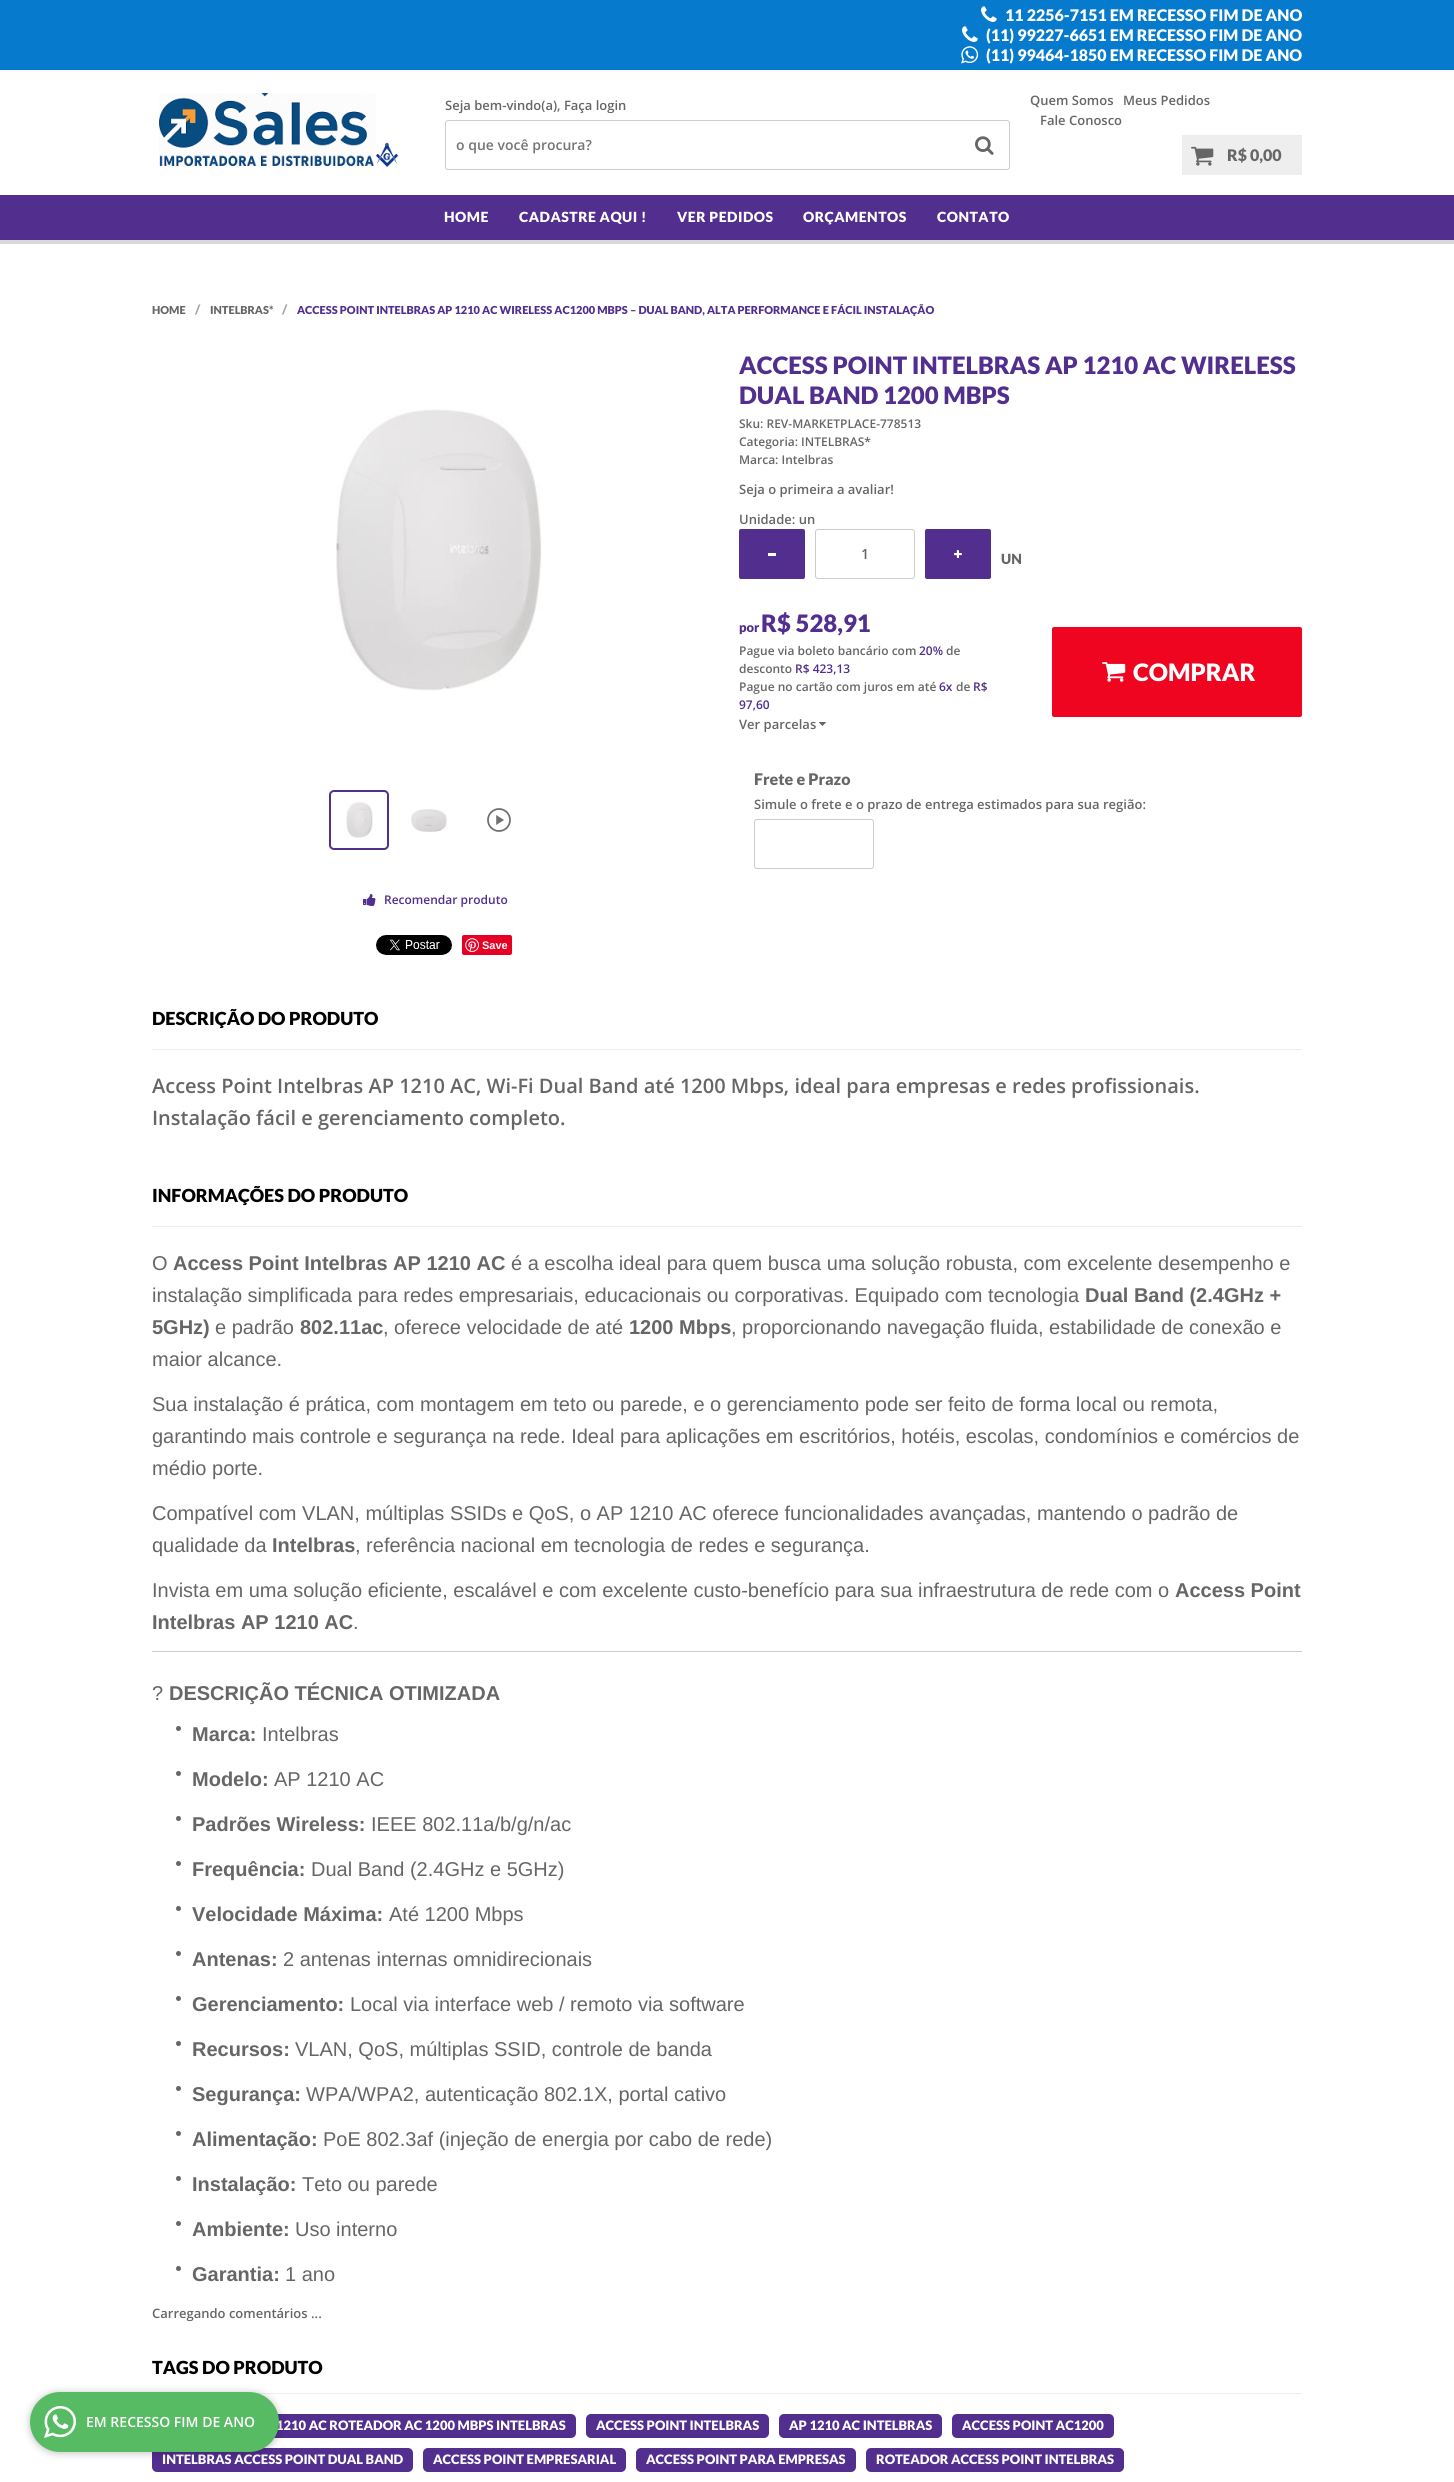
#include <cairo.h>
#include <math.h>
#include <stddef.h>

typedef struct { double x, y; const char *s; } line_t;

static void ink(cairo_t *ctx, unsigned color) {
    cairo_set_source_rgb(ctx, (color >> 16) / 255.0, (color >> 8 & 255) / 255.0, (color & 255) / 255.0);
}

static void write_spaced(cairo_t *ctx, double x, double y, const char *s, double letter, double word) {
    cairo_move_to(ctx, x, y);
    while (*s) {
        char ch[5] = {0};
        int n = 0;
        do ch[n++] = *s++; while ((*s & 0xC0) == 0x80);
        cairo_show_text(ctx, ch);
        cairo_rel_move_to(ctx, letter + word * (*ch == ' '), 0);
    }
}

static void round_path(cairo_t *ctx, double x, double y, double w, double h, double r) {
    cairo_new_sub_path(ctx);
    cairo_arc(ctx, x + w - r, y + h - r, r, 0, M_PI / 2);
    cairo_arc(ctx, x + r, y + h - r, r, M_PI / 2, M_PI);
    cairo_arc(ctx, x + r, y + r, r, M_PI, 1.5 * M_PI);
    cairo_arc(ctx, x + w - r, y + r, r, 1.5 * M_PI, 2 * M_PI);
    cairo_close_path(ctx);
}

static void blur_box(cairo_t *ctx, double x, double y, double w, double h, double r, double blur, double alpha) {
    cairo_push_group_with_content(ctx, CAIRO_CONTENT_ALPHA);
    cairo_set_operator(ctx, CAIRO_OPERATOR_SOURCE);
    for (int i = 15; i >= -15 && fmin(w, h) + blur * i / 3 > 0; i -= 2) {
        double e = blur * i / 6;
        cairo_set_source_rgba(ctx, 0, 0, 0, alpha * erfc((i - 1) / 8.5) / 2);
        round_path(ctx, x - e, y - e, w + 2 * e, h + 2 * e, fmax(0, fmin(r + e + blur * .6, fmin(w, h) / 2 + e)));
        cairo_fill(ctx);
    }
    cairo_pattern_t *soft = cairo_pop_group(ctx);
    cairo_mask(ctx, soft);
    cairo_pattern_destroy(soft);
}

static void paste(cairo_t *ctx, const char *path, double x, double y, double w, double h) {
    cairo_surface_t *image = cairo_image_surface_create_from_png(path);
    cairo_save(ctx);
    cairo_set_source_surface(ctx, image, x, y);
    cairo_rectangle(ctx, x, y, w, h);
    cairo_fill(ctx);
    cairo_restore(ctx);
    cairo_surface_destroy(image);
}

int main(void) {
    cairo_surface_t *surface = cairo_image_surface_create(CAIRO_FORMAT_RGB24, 1454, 2482);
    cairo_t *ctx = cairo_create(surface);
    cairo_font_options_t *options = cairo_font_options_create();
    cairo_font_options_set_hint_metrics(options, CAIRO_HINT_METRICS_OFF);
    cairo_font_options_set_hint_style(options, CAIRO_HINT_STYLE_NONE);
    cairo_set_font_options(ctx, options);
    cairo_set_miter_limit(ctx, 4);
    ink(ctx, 0xFFFFFF);
    cairo_paint(ctx);
    ink(ctx, 0x067ACC);
    cairo_rectangle(ctx, 0, 0, 1454, 70);
    cairo_fill(ctx);
    paste(ctx, "media/1.png", 981, 6, 16, 16);
    cairo_select_font_face(ctx, "Lato Black", CAIRO_FONT_SLANT_NORMAL, CAIRO_FONT_WEIGHT_NORMAL);
    cairo_set_font_size(ctx, 16);
    ink(ctx, 0xFFFFFF);
    cairo_move_to(ctx, 1005, 21);
    cairo_show_text(ctx, "11 2256-7151 EM RECESSO FIM DE ANO");
    paste(ctx, "media/1.png", 962, 26, 16, 16);
    cairo_move_to(ctx, 986, 41);
    cairo_show_text(ctx, "(11) 99227-6651 EM RECESSO FIM DE ANO");
    paste(ctx, "media/2.png", 961, 46, 18, 18);
    cairo_move_to(ctx, 986, 61);
    cairo_show_text(ctx, "(11) 99464-1850 EM RECESSO FIM DE ANO");
    paste(ctx, "media/3.png", 159, 93, 240, 74);
    cairo_select_font_face(ctx, "Open Sans SemiBold", CAIRO_FONT_SLANT_NORMAL, CAIRO_FONT_WEIGHT_NORMAL);
    cairo_set_font_size(ctx, 13);
    ink(ctx, 0x666666);
    cairo_move_to(ctx, 445, 110);
    cairo_show_text(ctx, "Seja bem-vindo(a), Faça login");
    round_path(ctx, 445.5, 120.5, 564, 49, 2.5);
    ink(ctx, 0xCCCCCC);
    cairo_set_line_width(ctx, 1);
    cairo_stroke(ctx);
    cairo_set_font_size(ctx, 14);
    ink(ctx, 0x757575);
    cairo_move_to(ctx, 456, 150);
    cairo_show_text(ctx, "o que você procura?");
    paste(ctx, "media/4.png", 975, 136, 19, 19);
    cairo_set_font_size(ctx, 13);
    ink(ctx, 0x666666);
    {
        static const line_t items[] = {
            {1030, 105, "Quem Somos"},
            {1123, 105, "Meus Pedidos"},
            {1040, 125, "Fale Conosco"},
        };
        for (size_t i = 0; i < sizeof items / sizeof *items; i++) {
            cairo_move_to(ctx, items[i].x, items[i].y);
            cairo_show_text(ctx, items[i].s);
        }
    }
    ink(ctx, 0xEEEEEE);
    cairo_rectangle(ctx, 1182, 135, 120, 40);
    cairo_fill(ctx);
    paste(ctx, "media/5.png", 1191, 146, 23, 20);
    cairo_select_font_face(ctx, "Lato Black", CAIRO_FONT_SLANT_NORMAL, CAIRO_FONT_WEIGHT_NORMAL);
    cairo_set_font_size(ctx, 16);
    ink(ctx, 0x666666);
    cairo_move_to(ctx, 1227, 161);
    cairo_show_text(ctx, "R$ 0,00");
    ink(ctx, 0xD9D9D9);
    cairo_rectangle(ctx, 0, 240, 1454, 4);
    cairo_fill(ctx);
    ink(ctx, 0x522E8F);
    cairo_rectangle(ctx, 0, 195, 1454, 45);
    cairo_fill(ctx);
    cairo_set_font_size(ctx, 14);
    ink(ctx, 0xFFFFFF);
    {
        static const line_t items[] = {
            {444, 222, "HOME"},
            {519, 222, "CADASTRE AQUI !"},
            {677, 222, "VER PEDIDOS"},
            {803, 222, "ORÇAMENTOS"},
            {937, 222, "CONTATO"},
        };
        for (size_t i = 0; i < sizeof items / sizeof *items; i++) {
            write_spaced(ctx, items[i].x, items[i].y, items[i].s, 0.5, 0);
        }
    }
    cairo_set_font_size(ctx, 11);
    ink(ctx, 0x666666);
    cairo_move_to(ctx, 152, 314);
    cairo_show_text(ctx, "HOME");
    cairo_set_font_size(ctx, 13);
    ink(ctx, 0xA3A3A3);
    cairo_move_to(ctx, 195, 314);
    cairo_show_text(ctx, "/");
    cairo_set_font_size(ctx, 11);
    ink(ctx, 0x666666);
    cairo_move_to(ctx, 210, 314);
    cairo_show_text(ctx, "INTELBRAS*");
    cairo_set_font_size(ctx, 13);
    ink(ctx, 0xA3A3A3);
    cairo_move_to(ctx, 282, 314);
    cairo_show_text(ctx, "/");
    cairo_set_font_size(ctx, 11);
    ink(ctx, 0x522E8F);
    cairo_move_to(ctx, 297, 314);
    cairo_show_text(ctx, "ACCESS POINT INTELBRAS AP 1210 AC WIRELESS AC1200 MBPS – DUAL BAND, ALTA PERFORMANCE E FÁCIL INSTALAÇÃO");
    cairo_set_font_size(ctx, 24);
    cairo_move_to(ctx, 739, 374);
    cairo_show_text(ctx, "ACCESS POINT INTELBRAS AP 1210 AC WIRELESS");
    cairo_move_to(ctx, 739, 404);
    cairo_show_text(ctx, "DUAL BAND 1200 MBPS");
    cairo_select_font_face(ctx, "Open Sans SemiBold", CAIRO_FONT_SLANT_NORMAL, CAIRO_FONT_WEIGHT_NORMAL);
    cairo_set_font_size(ctx, 12);
    ink(ctx, 0x666666);
    {
        static const line_t items[] = {
            {739, 428, "Sku: REV-MARKETPLACE-778513"},
            {739, 446, "Categoria: INTELBRAS*"},
            {739, 464, "Marca: Intelbras"},
        };
        for (size_t i = 0; i < sizeof items / sizeof *items; i++) {
            cairo_move_to(ctx, items[i].x, items[i].y);
            cairo_show_text(ctx, items[i].s);
        }
    }
    cairo_set_font_size(ctx, 13);
    cairo_move_to(ctx, 739, 494);
    cairo_show_text(ctx, "Seja o primeira a avaliar!");
    cairo_move_to(ctx, 739, 524);
    cairo_show_text(ctx, "Unidade: un");
    ink(ctx, 0x522E8F);
    round_path(ctx, 739, 529, 66, 50, 2);
    cairo_fill(ctx);
    ink(ctx, 0xFFFFFF);
    cairo_rectangle(ctx, 768, 553, 8, 3);
    cairo_fill(ctx);
    round_path(ctx, 815.5, 529.5, 99, 49, 2.5);
    ink(ctx, 0xCCCCCC);
    cairo_stroke(ctx);
    cairo_set_font_size(ctx, 14);
    ink(ctx, 0x666666);
    cairo_move_to(ctx, 861, 559);
    cairo_show_text(ctx, "1");
    ink(ctx, 0x522E8F);
    round_path(ctx, 925, 529, 66, 50, 2);
    cairo_fill(ctx);
    paste(ctx, "media/6.png", 954, 550, 8, 8);
    cairo_select_font_face(ctx, "Lato Black", CAIRO_FONT_SLANT_NORMAL, CAIRO_FONT_WEIGHT_NORMAL);
    ink(ctx, 0x666666);
    cairo_move_to(ctx, 1001, 564);
    cairo_show_text(ctx, "UN");
    cairo_set_font_size(ctx, 13);
    ink(ctx, 0x522E8F);
    cairo_move_to(ctx, 739, 632);
    cairo_show_text(ctx, "por");
    cairo_set_font_size(ctx, 24);
    cairo_move_to(ctx, 761, 632);
    cairo_show_text(ctx, "R$ 528,91");
    cairo_select_font_face(ctx, "Open Sans SemiBold", CAIRO_FONT_SLANT_NORMAL, CAIRO_FONT_WEIGHT_NORMAL);
    cairo_set_font_size(ctx, 12);
    ink(ctx, 0x666666);
    cairo_move_to(ctx, 739, 655);
    cairo_show_text(ctx, "Pague via boleto bancário com");
    ink(ctx, 0x522E8F);
    cairo_move_to(ctx, 919, 655);
    cairo_show_text(ctx, "20%");
    ink(ctx, 0x666666);
    cairo_move_to(ctx, 946, 655);
    cairo_show_text(ctx, "de");
    cairo_move_to(ctx, 739, 673);
    cairo_show_text(ctx, "desconto");
    ink(ctx, 0x522E8F);
    cairo_move_to(ctx, 795, 673);
    cairo_show_text(ctx, "R$ 423,13");
    ink(ctx, 0x666666);
    cairo_move_to(ctx, 739, 691);
    cairo_show_text(ctx, "Pague no cartão com juros em até");
    ink(ctx, 0x522E8F);
    cairo_move_to(ctx, 939, 691);
    cairo_show_text(ctx, "6x");
    ink(ctx, 0x666666);
    cairo_move_to(ctx, 956, 691);
    cairo_show_text(ctx, "de");
    ink(ctx, 0x522E8F);
    cairo_move_to(ctx, 973, 691);
    cairo_show_text(ctx, "R$");
    cairo_move_to(ctx, 739, 709);
    cairo_show_text(ctx, "97,60");
    cairo_set_font_size(ctx, 13);
    ink(ctx, 0x666666);
    cairo_move_to(ctx, 739, 729);
    cairo_show_text(ctx, "Ver parcelas");
    paste(ctx, "media/7.png", 819, 722, 7, 4);
    ink(ctx, 0xF00520);
    round_path(ctx, 1052, 627, 250, 90, 2);
    cairo_fill(ctx);
    paste(ctx, "media/8.png", 1102, 662, 24, 20);
    cairo_select_font_face(ctx, "Lato Black", CAIRO_FONT_SLANT_NORMAL, CAIRO_FONT_WEIGHT_NORMAL);
    cairo_set_font_size(ctx, 24);
    ink(ctx, 0xFFFFFF);
    cairo_move_to(ctx, 1133, 681);
    cairo_show_text(ctx, "COMPRAR");
    cairo_set_font_size(ctx, 16);
    ink(ctx, 0x666666);
    cairo_move_to(ctx, 754, 785);
    cairo_show_text(ctx, "Frete e Prazo");
    cairo_select_font_face(ctx, "Open Sans SemiBold", CAIRO_FONT_SLANT_NORMAL, CAIRO_FONT_WEIGHT_NORMAL);
    cairo_set_font_size(ctx, 13);
    cairo_move_to(ctx, 754, 809);
    cairo_show_text(ctx, "Simule o frete e o prazo de entrega estimados para sua região:");
    round_path(ctx, 754.5, 819.5, 119, 49, 2.5);
    ink(ctx, 0xCCCCCC);
    cairo_stroke(ctx);
    paste(ctx, "media/9.png", 336, 409, 206, 282);
    round_path(ctx, 330, 791, 58, 58, 4);
    ink(ctx, 0x522E8F);
    cairo_set_line_width(ctx, 2);
    cairo_stroke(ctx);
    paste(ctx, "media/10.png", 346, 802, 27, 36);
    paste(ctx, "media/11.png", 411, 809, 36, 23);
    paste(ctx, "media/12.png", 487, 808, 24, 24);
    paste(ctx, "media/13.png", 363, 894, 13, 12);
    cairo_set_font_size(ctx, 12);
    cairo_move_to(ctx, 384, 904);
    cairo_show_text(ctx, "Recomendar produto");
    paste(ctx, "media/14.png", 376, 935, 76, 20);
    ink(ctx, 0xE60023);
    round_path(ctx, 462, 935, 50, 20, 2);
    cairo_fill(ctx);
    paste(ctx, "media/15.png", 465, 938, 14, 14);
    cairo_select_font_face(ctx, "Liberation Sans", CAIRO_FONT_SLANT_NORMAL, CAIRO_FONT_WEIGHT_BOLD);
    cairo_set_font_size(ctx, 11);
    ink(ctx, 0xFFFFFF);
    cairo_move_to(ctx, 482, 949);
    cairo_show_text(ctx, "Save");
    ink(ctx, 0xEEEEEE);
    cairo_rectangle(ctx, 152, 1049, 1150, 1);
    cairo_fill(ctx);
    cairo_select_font_face(ctx, "Lato Black", CAIRO_FONT_SLANT_NORMAL, CAIRO_FONT_WEIGHT_NORMAL);
    cairo_set_font_size(ctx, 18);
    ink(ctx, 0x000000);
    cairo_move_to(ctx, 152, 1025);
    cairo_show_text(ctx, "DESCRIÇÃO DO PRODUTO");
    cairo_select_font_face(ctx, "Open Sans SemiBold", CAIRO_FONT_SLANT_NORMAL, CAIRO_FONT_WEIGHT_NORMAL);
    cairo_set_font_size(ctx, 20);
    ink(ctx, 0x666666);
    cairo_move_to(ctx, 152, 1093);
    cairo_show_text(ctx, "Access Point Intelbras AP 1210 AC, Wi-Fi Dual Band até 1200 Mbps, ideal para empresas e redes profissionais.");
    cairo_move_to(ctx, 152, 1125);
    cairo_show_text(ctx, "Instalação fácil e gerenciamento completo.");
    ink(ctx, 0xEEEEEE);
    cairo_rectangle(ctx, 152, 1226, 1150, 1);
    cairo_fill(ctx);
    cairo_select_font_face(ctx, "Lato Black", CAIRO_FONT_SLANT_NORMAL, CAIRO_FONT_WEIGHT_NORMAL);
    cairo_set_font_size(ctx, 18);
    ink(ctx, 0x000000);
    cairo_move_to(ctx, 152, 1202);
    cairo_show_text(ctx, "INFORMAÇÕES DO PRODUTO");
    cairo_select_font_face(ctx, "Liberation Sans", CAIRO_FONT_SLANT_NORMAL, CAIRO_FONT_WEIGHT_NORMAL);
    cairo_set_font_size(ctx, 20);
    ink(ctx, 0x666666);
    cairo_move_to(ctx, 152, 1270);
    cairo_show_text(ctx, "O");
    cairo_select_font_face(ctx, "Liberation Sans", CAIRO_FONT_SLANT_NORMAL, CAIRO_FONT_WEIGHT_BOLD);
    cairo_move_to(ctx, 173, 1270);
    cairo_show_text(ctx, "Access Point Intelbras AP 1210 AC");
    cairo_select_font_face(ctx, "Liberation Sans", CAIRO_FONT_SLANT_NORMAL, CAIRO_FONT_WEIGHT_NORMAL);
    cairo_move_to(ctx, 511, 1270);
    cairo_show_text(ctx, "é a escolha ideal para quem busca uma solução robusta, com excelente desempenho e");
    cairo_move_to(ctx, 152, 1302);
    cairo_show_text(ctx, "instalação simplificada para redes empresariais, educacionais ou corporativas. Equipado com tecnologia");
    cairo_select_font_face(ctx, "Liberation Sans", CAIRO_FONT_SLANT_NORMAL, CAIRO_FONT_WEIGHT_BOLD);
    cairo_move_to(ctx, 1085, 1302);
    cairo_show_text(ctx, "Dual Band (2.4GHz +");
    cairo_move_to(ctx, 152, 1334);
    cairo_show_text(ctx, "5GHz)");
    cairo_select_font_face(ctx, "Liberation Sans", CAIRO_FONT_SLANT_NORMAL, CAIRO_FONT_WEIGHT_NORMAL);
    cairo_move_to(ctx, 215, 1334);
    cairo_show_text(ctx, "e padrão");
    cairo_select_font_face(ctx, "Liberation Sans", CAIRO_FONT_SLANT_NORMAL, CAIRO_FONT_WEIGHT_BOLD);
    cairo_move_to(ctx, 300, 1334);
    cairo_show_text(ctx, "802.11ac");
    cairo_select_font_face(ctx, "Liberation Sans", CAIRO_FONT_SLANT_NORMAL, CAIRO_FONT_WEIGHT_NORMAL);
    cairo_move_to(ctx, 383, 1334);
    cairo_show_text(ctx, ", oferece velocidade de até");
    cairo_select_font_face(ctx, "Liberation Sans", CAIRO_FONT_SLANT_NORMAL, CAIRO_FONT_WEIGHT_BOLD);
    cairo_move_to(ctx, 629, 1334);
    cairo_show_text(ctx, "1200 Mbps");
    cairo_select_font_face(ctx, "Liberation Sans", CAIRO_FONT_SLANT_NORMAL, CAIRO_FONT_WEIGHT_NORMAL);
    {
        static const line_t items[] = {
            {731, 1334, ", proporcionando navegação fluida, estabilidade de conexão e"},
            {152, 1366, "maior alcance."},
            {152, 1411, "Sua instalação é prática, com montagem em teto ou parede, e o gerenciamento pode ser feito de forma local ou remota,"},
            {152, 1443, "garantindo mais controle e segurança na rede. Ideal para aplicações em escritórios, hotéis, escolas, condomínios e comércios de"},
            {152, 1475, "médio porte."},
            {152, 1520, "Compatível com VLAN, múltiplas SSIDs e QoS, o AP 1210 AC oferece funcionalidades avançadas, mantendo o padrão de"},
            {152, 1552, "qualidade da"},
        };
        for (size_t i = 0; i < sizeof items / sizeof *items; i++) {
            cairo_move_to(ctx, items[i].x, items[i].y);
            cairo_show_text(ctx, items[i].s);
        }
    }
    cairo_select_font_face(ctx, "Liberation Sans", CAIRO_FONT_SLANT_NORMAL, CAIRO_FONT_WEIGHT_BOLD);
    cairo_move_to(ctx, 272, 1552);
    cairo_show_text(ctx, "Intelbras");
    cairo_select_font_face(ctx, "Liberation Sans", CAIRO_FONT_SLANT_NORMAL, CAIRO_FONT_WEIGHT_NORMAL);
    cairo_move_to(ctx, 355, 1552);
    cairo_show_text(ctx, ", referência nacional em tecnologia de redes e segurança.");
    cairo_move_to(ctx, 152, 1597);
    cairo_show_text(ctx, "Invista em uma solução eficiente, escalável e com excelente custo-benefício para sua infraestrutura de rede com o");
    cairo_select_font_face(ctx, "Liberation Sans", CAIRO_FONT_SLANT_NORMAL, CAIRO_FONT_WEIGHT_BOLD);
    cairo_move_to(ctx, 1175, 1597);
    cairo_show_text(ctx, "Access Point");
    cairo_move_to(ctx, 152, 1629);
    cairo_show_text(ctx, "Intelbras AP 1210 AC");
    cairo_select_font_face(ctx, "Liberation Sans", CAIRO_FONT_SLANT_NORMAL, CAIRO_FONT_WEIGHT_NORMAL);
    cairo_move_to(ctx, 353, 1629);
    cairo_show_text(ctx, ".");
    ink(ctx, 0xCCCCCC);
    cairo_rectangle(ctx, 152, 1651, 1150, 1);
    cairo_fill(ctx);
    ink(ctx, 0x666666);
    cairo_move_to(ctx, 152, 1700);
    cairo_show_text(ctx, "?");
    cairo_select_font_face(ctx, "Liberation Sans", CAIRO_FONT_SLANT_NORMAL, CAIRO_FONT_WEIGHT_BOLD);
    cairo_move_to(ctx, 169, 1700);
    cairo_show_text(ctx, "DESCRIÇÃO TÉCNICA OTIMIZADA");
    cairo_new_path(ctx);
    cairo_arc(ctx, 178.5, 1728.5, 2.5, 0, 2 * M_PI);
    cairo_fill(ctx);
    cairo_move_to(ctx, 192, 1741);
    cairo_show_text(ctx, "Marca:");
    cairo_select_font_face(ctx, "Liberation Sans", CAIRO_FONT_SLANT_NORMAL, CAIRO_FONT_WEIGHT_NORMAL);
    cairo_move_to(ctx, 262, 1741);
    cairo_show_text(ctx, "Intelbras");
    cairo_new_path(ctx);
    cairo_arc(ctx, 178.5, 1773.5, 2.5, 0, 2 * M_PI);
    cairo_fill(ctx);
    cairo_select_font_face(ctx, "Liberation Sans", CAIRO_FONT_SLANT_NORMAL, CAIRO_FONT_WEIGHT_BOLD);
    cairo_move_to(ctx, 192, 1786);
    cairo_show_text(ctx, "Modelo:");
    cairo_select_font_face(ctx, "Liberation Sans", CAIRO_FONT_SLANT_NORMAL, CAIRO_FONT_WEIGHT_NORMAL);
    cairo_move_to(ctx, 274, 1786);
    cairo_show_text(ctx, "AP 1210 AC");
    cairo_new_path(ctx);
    cairo_arc(ctx, 178.5, 1818.5, 2.5, 0, 2 * M_PI);
    cairo_fill(ctx);
    cairo_select_font_face(ctx, "Liberation Sans", CAIRO_FONT_SLANT_NORMAL, CAIRO_FONT_WEIGHT_BOLD);
    cairo_move_to(ctx, 192, 1831);
    cairo_show_text(ctx, "Padrões Wireless:");
    cairo_select_font_face(ctx, "Liberation Sans", CAIRO_FONT_SLANT_NORMAL, CAIRO_FONT_WEIGHT_NORMAL);
    cairo_move_to(ctx, 371, 1831);
    cairo_show_text(ctx, "IEEE 802.11a/b/g/n/ac");
    cairo_new_path(ctx);
    cairo_arc(ctx, 178.5, 1863.5, 2.5, 0, 2 * M_PI);
    cairo_fill(ctx);
    cairo_select_font_face(ctx, "Liberation Sans", CAIRO_FONT_SLANT_NORMAL, CAIRO_FONT_WEIGHT_BOLD);
    cairo_move_to(ctx, 192, 1876);
    cairo_show_text(ctx, "Frequência:");
    cairo_select_font_face(ctx, "Liberation Sans", CAIRO_FONT_SLANT_NORMAL, CAIRO_FONT_WEIGHT_NORMAL);
    cairo_move_to(ctx, 311, 1876);
    cairo_show_text(ctx, "Dual Band (2.4GHz e 5GHz)");
    cairo_new_path(ctx);
    cairo_arc(ctx, 178.5, 1908.5, 2.5, 0, 2 * M_PI);
    cairo_fill(ctx);
    cairo_select_font_face(ctx, "Liberation Sans", CAIRO_FONT_SLANT_NORMAL, CAIRO_FONT_WEIGHT_BOLD);
    cairo_move_to(ctx, 192, 1921);
    cairo_show_text(ctx, "Velocidade Máxima:");
    cairo_select_font_face(ctx, "Liberation Sans", CAIRO_FONT_SLANT_NORMAL, CAIRO_FONT_WEIGHT_NORMAL);
    cairo_move_to(ctx, 389, 1921);
    cairo_show_text(ctx, "Até 1200 Mbps");
    cairo_new_path(ctx);
    cairo_arc(ctx, 178.5, 1953.5, 2.5, 0, 2 * M_PI);
    cairo_fill(ctx);
    cairo_select_font_face(ctx, "Liberation Sans", CAIRO_FONT_SLANT_NORMAL, CAIRO_FONT_WEIGHT_BOLD);
    cairo_move_to(ctx, 192, 1966);
    cairo_show_text(ctx, "Antenas:");
    cairo_select_font_face(ctx, "Liberation Sans", CAIRO_FONT_SLANT_NORMAL, CAIRO_FONT_WEIGHT_NORMAL);
    cairo_move_to(ctx, 283, 1966);
    cairo_show_text(ctx, "2 antenas internas omnidirecionais");
    cairo_new_path(ctx);
    cairo_arc(ctx, 178.5, 1998.5, 2.5, 0, 2 * M_PI);
    cairo_fill(ctx);
    cairo_select_font_face(ctx, "Liberation Sans", CAIRO_FONT_SLANT_NORMAL, CAIRO_FONT_WEIGHT_BOLD);
    cairo_move_to(ctx, 192, 2011);
    cairo_show_text(ctx, "Gerenciamento:");
    cairo_select_font_face(ctx, "Liberation Sans", CAIRO_FONT_SLANT_NORMAL, CAIRO_FONT_WEIGHT_NORMAL);
    cairo_move_to(ctx, 350, 2011);
    cairo_show_text(ctx, "Local via interface web / remoto via software");
    cairo_new_path(ctx);
    cairo_arc(ctx, 178.5, 2043.5, 2.5, 0, 2 * M_PI);
    cairo_fill(ctx);
    cairo_select_font_face(ctx, "Liberation Sans", CAIRO_FONT_SLANT_NORMAL, CAIRO_FONT_WEIGHT_BOLD);
    cairo_move_to(ctx, 192, 2056);
    cairo_show_text(ctx, "Recursos:");
    cairo_select_font_face(ctx, "Liberation Sans", CAIRO_FONT_SLANT_NORMAL, CAIRO_FONT_WEIGHT_NORMAL);
    cairo_move_to(ctx, 295, 2056);
    cairo_show_text(ctx, "VLAN, QoS, múltiplas SSID, controle de banda");
    cairo_new_path(ctx);
    cairo_arc(ctx, 178.5, 2088.5, 2.5, 0, 2 * M_PI);
    cairo_fill(ctx);
    cairo_select_font_face(ctx, "Liberation Sans", CAIRO_FONT_SLANT_NORMAL, CAIRO_FONT_WEIGHT_BOLD);
    cairo_move_to(ctx, 192, 2101);
    cairo_show_text(ctx, "Segurança:");
    cairo_select_font_face(ctx, "Liberation Sans", CAIRO_FONT_SLANT_NORMAL, CAIRO_FONT_WEIGHT_NORMAL);
    cairo_move_to(ctx, 306, 2101);
    cairo_show_text(ctx, "WPA/WPA2, autenticação 802.1X, portal cativo");
    cairo_new_path(ctx);
    cairo_arc(ctx, 178.5, 2133.5, 2.5, 0, 2 * M_PI);
    cairo_fill(ctx);
    cairo_select_font_face(ctx, "Liberation Sans", CAIRO_FONT_SLANT_NORMAL, CAIRO_FONT_WEIGHT_BOLD);
    cairo_move_to(ctx, 192, 2146);
    cairo_show_text(ctx, "Alimentação:");
    cairo_select_font_face(ctx, "Liberation Sans", CAIRO_FONT_SLANT_NORMAL, CAIRO_FONT_WEIGHT_NORMAL);
    cairo_move_to(ctx, 323, 2146);
    cairo_show_text(ctx, "PoE 802.3af (injeção de energia por cabo de rede)");
    cairo_new_path(ctx);
    cairo_arc(ctx, 178.5, 2178.5, 2.5, 0, 2 * M_PI);
    cairo_fill(ctx);
    cairo_select_font_face(ctx, "Liberation Sans", CAIRO_FONT_SLANT_NORMAL, CAIRO_FONT_WEIGHT_BOLD);
    cairo_move_to(ctx, 192, 2191);
    cairo_show_text(ctx, "Instalação:");
    cairo_select_font_face(ctx, "Liberation Sans", CAIRO_FONT_SLANT_NORMAL, CAIRO_FONT_WEIGHT_NORMAL);
    cairo_move_to(ctx, 302, 2191);
    cairo_show_text(ctx, "Teto ou parede");
    cairo_new_path(ctx);
    cairo_arc(ctx, 178.5, 2223.5, 2.5, 0, 2 * M_PI);
    cairo_fill(ctx);
    cairo_select_font_face(ctx, "Liberation Sans", CAIRO_FONT_SLANT_NORMAL, CAIRO_FONT_WEIGHT_BOLD);
    cairo_move_to(ctx, 192, 2236);
    cairo_show_text(ctx, "Ambiente:");
    cairo_select_font_face(ctx, "Liberation Sans", CAIRO_FONT_SLANT_NORMAL, CAIRO_FONT_WEIGHT_NORMAL);
    cairo_move_to(ctx, 295, 2236);
    cairo_show_text(ctx, "Uso interno");
    cairo_new_path(ctx);
    cairo_arc(ctx, 178.5, 2268.5, 2.5, 0, 2 * M_PI);
    cairo_fill(ctx);
    cairo_select_font_face(ctx, "Liberation Sans", CAIRO_FONT_SLANT_NORMAL, CAIRO_FONT_WEIGHT_BOLD);
    cairo_move_to(ctx, 192, 2281);
    cairo_show_text(ctx, "Garantia:");
    cairo_select_font_face(ctx, "Liberation Sans", CAIRO_FONT_SLANT_NORMAL, CAIRO_FONT_WEIGHT_NORMAL);
    cairo_move_to(ctx, 285, 2281);
    cairo_show_text(ctx, "1 ano");
    cairo_select_font_face(ctx, "Open Sans SemiBold", CAIRO_FONT_SLANT_NORMAL, CAIRO_FONT_WEIGHT_NORMAL);
    cairo_set_font_size(ctx, 13);
    cairo_move_to(ctx, 152, 2318);
    cairo_show_text(ctx, "Carregando comentários ...");
    ink(ctx, 0xEEEEEE);
    cairo_rectangle(ctx, 256, 2393, 1046, 1);
    cairo_fill(ctx);
    cairo_select_font_face(ctx, "Lato Black", CAIRO_FONT_SLANT_NORMAL, CAIRO_FONT_WEIGHT_NORMAL);
    cairo_set_font_size(ctx, 18);
    ink(ctx, 0x000000);
    cairo_move_to(ctx, 152, 2374);
    cairo_show_text(ctx, "TAGS DO PRODUTO");
    ink(ctx, 0x522E8F);
    round_path(ctx, 152, 2414, 424, 24, 5);
    cairo_fill(ctx);
    cairo_set_font_size(ctx, 13);
    ink(ctx, 0xFFFFFF);
    cairo_move_to(ctx, 276, 2430);
    cairo_show_text(ctx, "1210 AC ROTEADOR AC 1200 MBPS INTELBRAS");
    ink(ctx, 0x522E8F);
    round_path(ctx, 586, 2414, 183, 24, 5);
    cairo_fill(ctx);
    ink(ctx, 0xFFFFFF);
    cairo_move_to(ctx, 596, 2430);
    cairo_show_text(ctx, "ACCESS POINT INTELBRAS");
    ink(ctx, 0x522E8F);
    round_path(ctx, 779, 2414, 163, 24, 5);
    cairo_fill(ctx);
    ink(ctx, 0xFFFFFF);
    cairo_move_to(ctx, 789, 2430);
    cairo_show_text(ctx, "AP 1210 AC INTELBRAS");
    ink(ctx, 0x522E8F);
    round_path(ctx, 952, 2414, 162, 24, 5);
    cairo_fill(ctx);
    ink(ctx, 0xFFFFFF);
    cairo_move_to(ctx, 962, 2430);
    cairo_show_text(ctx, "ACCESS POINT AC1200");
    ink(ctx, 0x522E8F);
    round_path(ctx, 152, 2448, 261, 24, 5);
    cairo_fill(ctx);
    ink(ctx, 0xFFFFFF);
    cairo_move_to(ctx, 162, 2464);
    cairo_show_text(ctx, "INTELBRAS ACCESS POINT DUAL BAND");
    ink(ctx, 0x522E8F);
    round_path(ctx, 423, 2448, 203, 24, 5);
    cairo_fill(ctx);
    ink(ctx, 0xFFFFFF);
    cairo_move_to(ctx, 433, 2464);
    cairo_show_text(ctx, "ACCESS POINT EMPRESARIAL");
    ink(ctx, 0x522E8F);
    round_path(ctx, 636, 2448, 220, 24, 5);
    cairo_fill(ctx);
    ink(ctx, 0xFFFFFF);
    cairo_move_to(ctx, 646, 2464);
    cairo_show_text(ctx, "ACCESS POINT PARA EMPRESAS");
    ink(ctx, 0x522E8F);
    round_path(ctx, 866, 2448, 258, 24, 5);
    cairo_fill(ctx);
    ink(ctx, 0xFFFFFF);
    cairo_move_to(ctx, 876, 2464);
    cairo_show_text(ctx, "ROTEADOR ACCESS POINT INTELBRAS");
    ink(ctx, 0x000000);
    blur_box(ctx, 30, 2393, 249, 60, 30, 4, 0.25);
    ink(ctx, 0x57BB63);
    round_path(ctx, 30, 2392, 249, 60, 30);
    cairo_fill(ctx);
    paste(ctx, "media/16.png", 44, 2406, 32, 32);
    cairo_select_font_face(ctx, "Open Sans SemiBold", CAIRO_FONT_SLANT_NORMAL, CAIRO_FONT_WEIGHT_NORMAL);
    cairo_set_font_size(ctx, 14);
    ink(ctx, 0xFFFFFF);
    cairo_move_to(ctx, 86, 2427);
    cairo_show_text(ctx, "EM RECESSO FIM DE ANO");
    cairo_surface_write_to_png(surface, "image.png");
    cairo_font_options_destroy(options);
    cairo_destroy(ctx);
    cairo_surface_destroy(surface);
    return 0;
}
